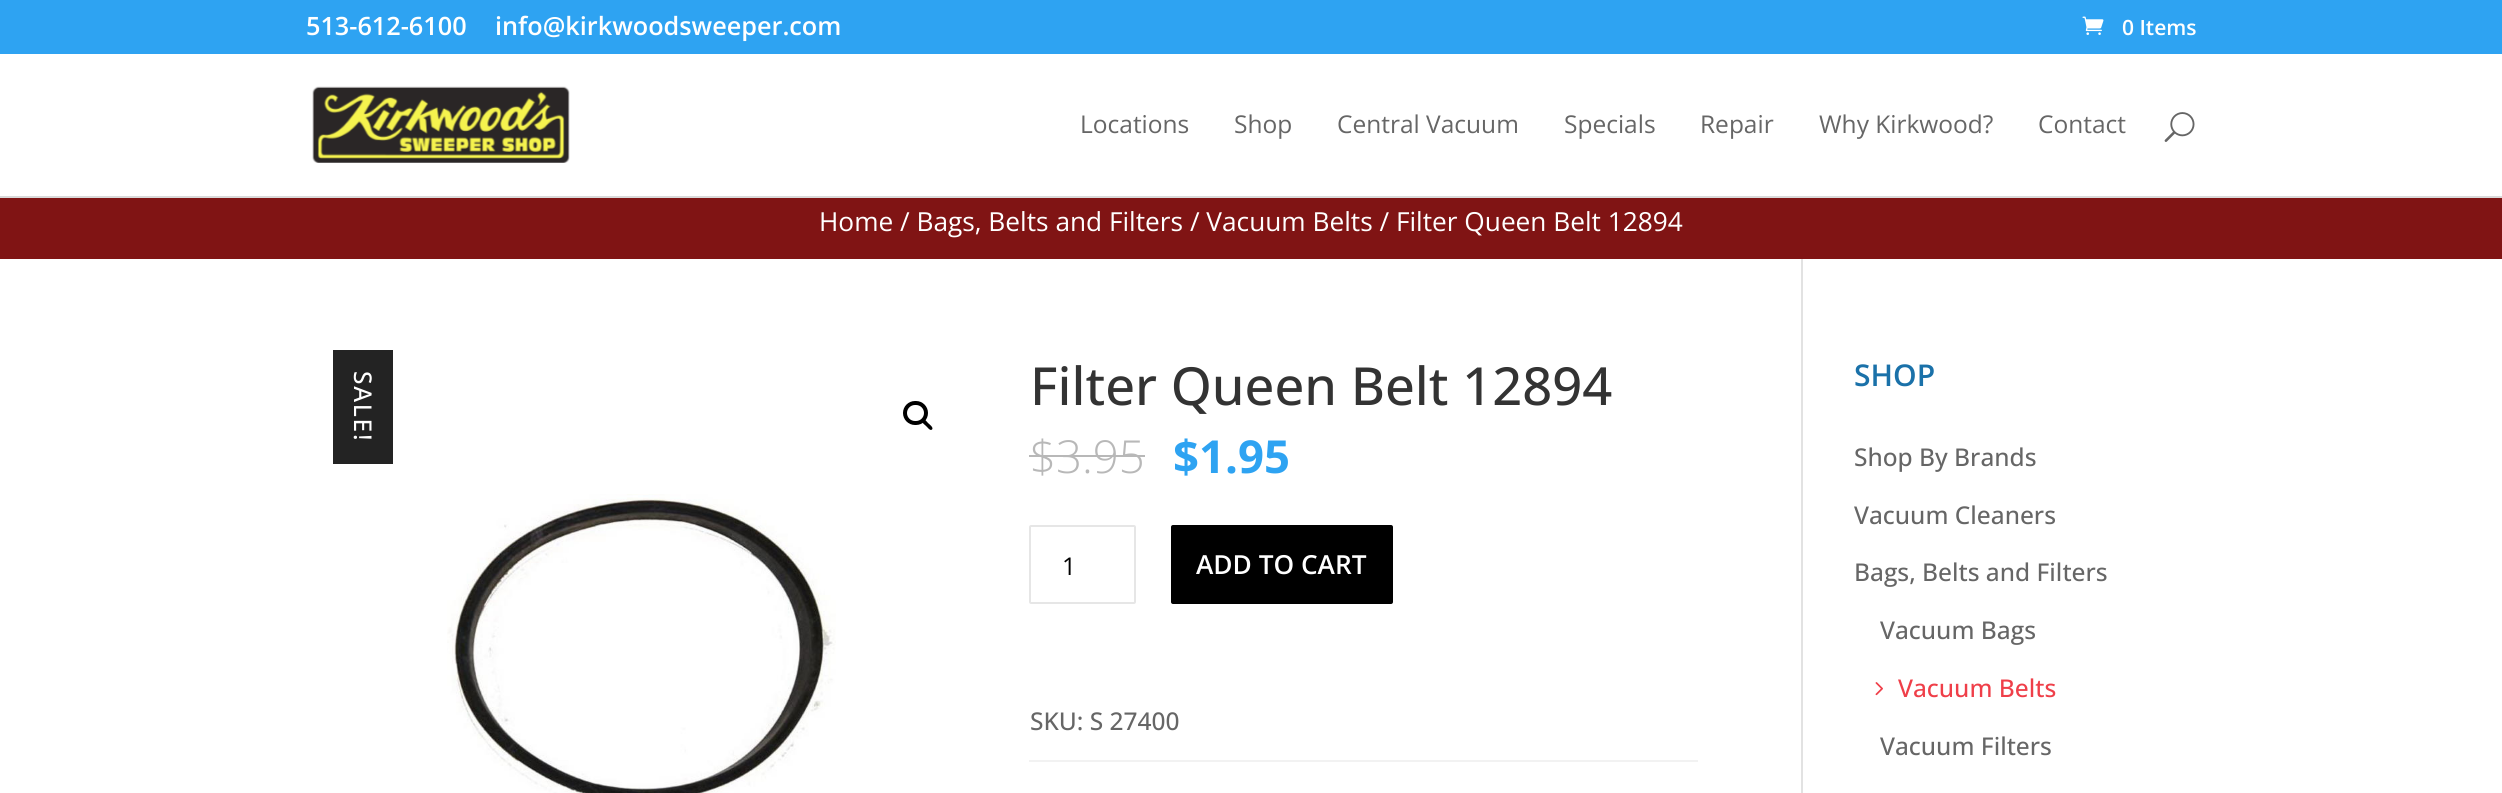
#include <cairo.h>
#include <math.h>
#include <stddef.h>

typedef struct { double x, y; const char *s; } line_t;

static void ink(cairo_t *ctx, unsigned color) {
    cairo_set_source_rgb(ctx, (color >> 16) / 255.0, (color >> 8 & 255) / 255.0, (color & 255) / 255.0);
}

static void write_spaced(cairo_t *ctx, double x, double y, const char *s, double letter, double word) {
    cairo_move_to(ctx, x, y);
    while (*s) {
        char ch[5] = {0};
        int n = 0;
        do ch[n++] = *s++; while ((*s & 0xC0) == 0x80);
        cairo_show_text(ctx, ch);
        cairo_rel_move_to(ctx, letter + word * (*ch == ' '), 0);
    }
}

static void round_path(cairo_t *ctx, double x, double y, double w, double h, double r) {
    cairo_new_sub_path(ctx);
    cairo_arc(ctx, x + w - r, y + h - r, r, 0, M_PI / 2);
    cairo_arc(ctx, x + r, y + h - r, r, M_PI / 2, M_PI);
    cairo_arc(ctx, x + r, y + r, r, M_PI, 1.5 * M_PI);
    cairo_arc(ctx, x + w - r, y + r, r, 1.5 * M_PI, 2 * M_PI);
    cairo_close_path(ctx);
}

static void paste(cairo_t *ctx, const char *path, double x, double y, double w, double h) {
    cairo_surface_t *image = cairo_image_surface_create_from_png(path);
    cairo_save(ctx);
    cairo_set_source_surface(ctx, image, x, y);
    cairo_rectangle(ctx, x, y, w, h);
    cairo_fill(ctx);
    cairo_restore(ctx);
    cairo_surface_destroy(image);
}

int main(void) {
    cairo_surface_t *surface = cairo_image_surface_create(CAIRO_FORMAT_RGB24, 2502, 793);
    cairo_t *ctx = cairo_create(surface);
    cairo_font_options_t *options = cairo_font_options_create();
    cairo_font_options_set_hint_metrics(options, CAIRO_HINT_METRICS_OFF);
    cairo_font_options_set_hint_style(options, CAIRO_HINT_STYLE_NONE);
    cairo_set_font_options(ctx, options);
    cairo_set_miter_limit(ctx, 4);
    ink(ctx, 0xFFFFFF);
    cairo_paint(ctx);
    ink(ctx, 0x2EA3F2);
    cairo_rectangle(ctx, 0, 0, 2502, 54);
    cairo_fill(ctx);
    cairo_select_font_face(ctx, "Open Sans SemiBold", CAIRO_FONT_SLANT_NORMAL, CAIRO_FONT_WEIGHT_NORMAL);
    cairo_set_font_size(ctx, 25.25);
    ink(ctx, 0xFFFFFF);
    cairo_move_to(ctx, 306, 35);
    cairo_show_text(ctx, "513-612-6100");
    cairo_move_to(ctx, 495, 35);
    cairo_show_text(ctx, "info@kirkwoodsweeper.com");
    paste(ctx, "media/1.png", 2082, 16, 22, 19);
    cairo_set_font_size(ctx, 21);
    cairo_move_to(ctx, 2122, 35);
    cairo_show_text(ctx, "0 Items");
    ink(ctx, 0xD9D9D9);
    cairo_rectangle(ctx, 0, 196, 2502, 2);
    cairo_fill(ctx);
    paste(ctx, "media/2.png", 312, 86, 258, 77);
    cairo_select_font_face(ctx, "Open Sans", CAIRO_FONT_SLANT_NORMAL, CAIRO_FONT_WEIGHT_NORMAL);
    cairo_set_font_size(ctx, 24.5);
    ink(ctx, 0x666666);
    {
        static const line_t items[] = {
            {1080, 133, "Locations"},
            {1234, 133, "Shop"},
            {1337, 133, "Central Vacuum"},
            {1564, 133, "Specials"},
            {1700, 133, "Repair"},
            {1819, 133, "Why Kirkwood?"},
            {2038, 133, "Contact"},
        };
        for (size_t i = 0; i < sizeof items / sizeof *items; i++) {
            cairo_move_to(ctx, items[i].x, items[i].y);
            cairo_show_text(ctx, items[i].s);
        }
    }
    paste(ctx, "media/3.png", 2164, 112, 31, 30);
    ink(ctx, 0x801414);
    cairo_rectangle(ctx, 0, 198, 2502, 61);
    cairo_fill(ctx);
    cairo_set_font_size(ctx, 26.25);
    ink(ctx, 0xFFFFFF);
    cairo_move_to(ctx, 819, 231);
    cairo_show_text(ctx, "Home / Bags, Belts and Filters / Vacuum Belts / Filter Queen Belt 12894");
    ink(ctx, 0xE2E2E2);
    cairo_rectangle(ctx, 1801, 259, 2, 534);
    cairo_fill(ctx);
    ink(ctx, 0x232323);
    cairo_rectangle(ctx, 333, 350, 60, 114);
    cairo_fill(ctx);
    cairo_select_font_face(ctx, "Open Sans Medium", CAIRO_FONT_SLANT_NORMAL, CAIRO_FONT_WEIGHT_NORMAL);
    cairo_set_font_size(ctx, 24.5);
    ink(ctx, 0xFFFFFF);
    cairo_save(ctx);
    cairo_translate(ctx, 354, 371);
    cairo_rotate(ctx, 90 * M_PI / 180);
    write_spaced(ctx, 0, 0, "SALE!", 1.75, 0);
    cairo_restore(ctx);
    round_path(ctx, 905, 403, 21, 20, 10);
    ink(ctx, 0x000000);
    cairo_set_line_width(ctx, 4);
    cairo_stroke(ctx);
    cairo_new_path(ctx);
    cairo_move_to(ctx, 922, 419.5);
    cairo_curve_to(ctx, 924, 417.5, 927, 422, 928, 423);
    cairo_curve_to(ctx, 929, 424, 934, 427.5, 932, 429.5);
    cairo_curve_to(ctx, 930, 431.5, 927, 426.5, 925.5, 425.5);
    cairo_curve_to(ctx, 924.5, 424.5, 920, 421.5, 922, 419.5);
    cairo_close_path(ctx);
    cairo_fill(ctx);
    paste(ctx, "media/4.png", 447, 494, 389, 299);
    cairo_set_font_size(ctx, 52.5);
    ink(ctx, 0x333333);
    cairo_move_to(ctx, 1030, 405);
    cairo_show_text(ctx, "Filter Queen Belt 12894");
    cairo_select_font_face(ctx, "Open Sans Light", CAIRO_FONT_SLANT_NORMAL, CAIRO_FONT_WEIGHT_NORMAL);
    cairo_set_font_size(ctx, 45.5);
    ink(ctx, 0xB8B8B8);
    cairo_move_to(ctx, 1030, 473);
    cairo_show_text(ctx, "$3.95");
    cairo_rectangle(ctx, 1029, 455, 116, 2);
    cairo_fill(ctx);
    cairo_select_font_face(ctx, "Open Sans", CAIRO_FONT_SLANT_NORMAL, CAIRO_FONT_WEIGHT_BOLD);
    ink(ctx, 0x2EA3F2);
    cairo_move_to(ctx, 1173, 473);
    cairo_show_text(ctx, "$1.95");
    round_path(ctx, 1030, 526, 105, 77, 1);
    ink(ctx, 0xE6E6E6);
    cairo_set_line_width(ctx, 2);
    cairo_stroke(ctx);
    cairo_select_font_face(ctx, "Open Sans", CAIRO_FONT_SLANT_NORMAL, CAIRO_FONT_WEIGHT_NORMAL);
    cairo_set_font_size(ctx, 24.5);
    ink(ctx, 0x000000);
    cairo_move_to(ctx, 1062, 575);
    cairo_show_text(ctx, "1");
    round_path(ctx, 1171, 525, 222, 79, 2);
    cairo_fill(ctx);
    cairo_select_font_face(ctx, "Open Sans SemiBold", CAIRO_FONT_SLANT_NORMAL, CAIRO_FONT_WEIGHT_NORMAL);
    cairo_set_font_size(ctx, 26.25);
    ink(ctx, 0xFFFFFF);
    cairo_move_to(ctx, 1196, 574);
    cairo_show_text(ctx, "ADD TO CART");
    ink(ctx, 0xF2F2F2);
    cairo_rectangle(ctx, 1029, 760, 669, 2);
    cairo_fill(ctx);
    cairo_select_font_face(ctx, "Open Sans Medium", CAIRO_FONT_SLANT_NORMAL, CAIRO_FONT_WEIGHT_NORMAL);
    cairo_set_font_size(ctx, 24.5);
    ink(ctx, 0x666666);
    cairo_move_to(ctx, 1030, 730);
    cairo_show_text(ctx, "SKU: S 27400");
    cairo_select_font_face(ctx, "Open Sans SemiBold", CAIRO_FONT_SLANT_NORMAL, CAIRO_FONT_WEIGHT_NORMAL);
    cairo_set_font_size(ctx, 30);
    ink(ctx, 0x1A71A9);
    cairo_move_to(ctx, 1854, 386);
    cairo_show_text(ctx, "SHOP");
    cairo_select_font_face(ctx, "Open Sans Medium", CAIRO_FONT_SLANT_NORMAL, CAIRO_FONT_WEIGHT_NORMAL);
    cairo_set_font_size(ctx, 24.5);
    ink(ctx, 0x666666);
    {
        static const line_t items[] = {
            {1854, 466, "Shop By Brands"},
            {1854, 524, "Vacuum Cleaners"},
            {1854, 581, "Bags, Belts and Filters"},
            {1880, 639, "Vacuum Bags"},
        };
        for (size_t i = 0; i < sizeof items / sizeof *items; i++) {
            cairo_move_to(ctx, items[i].x, items[i].y);
            cairo_show_text(ctx, items[i].s);
        }
    }
    paste(ctx, "media/5.png", 1875, 682, 8, 14);
    ink(ctx, 0xEF3F49);
    cairo_move_to(ctx, 1898, 697);
    cairo_show_text(ctx, "Vacuum Belts");
    ink(ctx, 0x666666);
    cairo_move_to(ctx, 1880, 755);
    cairo_show_text(ctx, "Vacuum Filters");
    cairo_surface_write_to_png(surface, "image.png");
    cairo_font_options_destroy(options);
    cairo_destroy(ctx);
    cairo_surface_destroy(surface);
    return 0;
}
